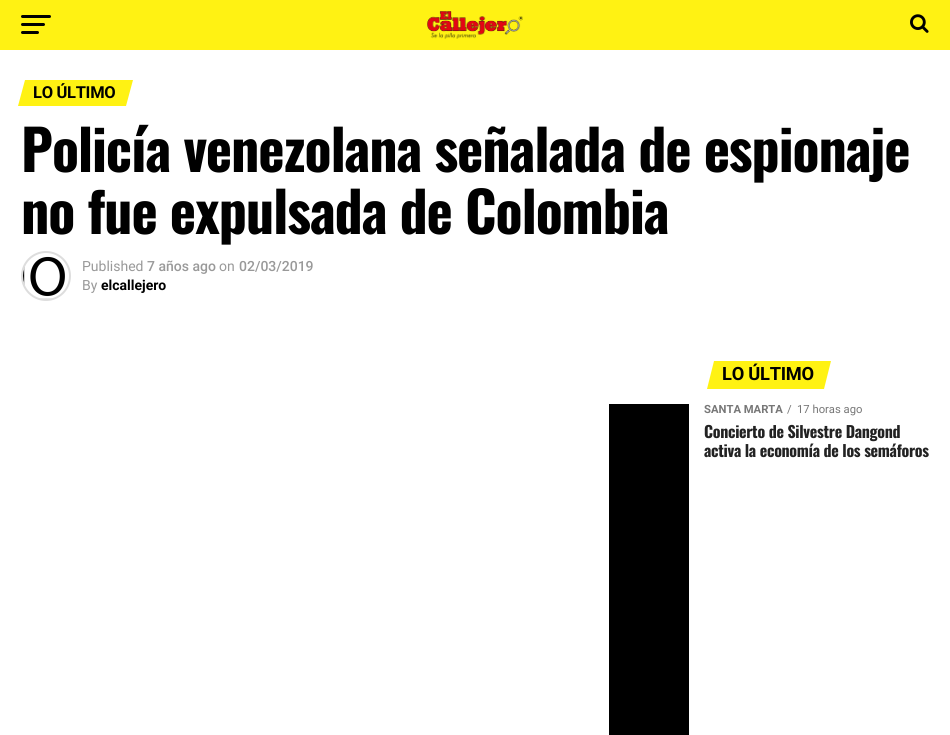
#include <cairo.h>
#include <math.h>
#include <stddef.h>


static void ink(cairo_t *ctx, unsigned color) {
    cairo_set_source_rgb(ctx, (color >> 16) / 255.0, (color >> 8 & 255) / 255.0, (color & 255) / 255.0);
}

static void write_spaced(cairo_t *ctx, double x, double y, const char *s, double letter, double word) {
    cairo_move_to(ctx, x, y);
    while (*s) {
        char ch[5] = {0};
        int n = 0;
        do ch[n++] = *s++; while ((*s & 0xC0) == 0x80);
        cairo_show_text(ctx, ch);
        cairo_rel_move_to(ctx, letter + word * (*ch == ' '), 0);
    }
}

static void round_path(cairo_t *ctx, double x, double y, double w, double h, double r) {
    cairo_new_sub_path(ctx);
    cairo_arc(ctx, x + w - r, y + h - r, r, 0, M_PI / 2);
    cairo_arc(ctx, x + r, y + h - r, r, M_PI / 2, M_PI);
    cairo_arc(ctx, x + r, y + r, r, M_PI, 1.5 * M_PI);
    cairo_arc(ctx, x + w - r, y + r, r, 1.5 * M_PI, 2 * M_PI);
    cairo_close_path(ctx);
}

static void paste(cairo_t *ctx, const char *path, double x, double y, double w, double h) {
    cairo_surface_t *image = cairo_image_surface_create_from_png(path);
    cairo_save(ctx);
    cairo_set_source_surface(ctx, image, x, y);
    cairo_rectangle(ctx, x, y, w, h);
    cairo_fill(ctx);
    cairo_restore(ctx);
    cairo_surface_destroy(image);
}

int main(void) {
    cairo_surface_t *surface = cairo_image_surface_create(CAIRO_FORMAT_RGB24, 950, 735);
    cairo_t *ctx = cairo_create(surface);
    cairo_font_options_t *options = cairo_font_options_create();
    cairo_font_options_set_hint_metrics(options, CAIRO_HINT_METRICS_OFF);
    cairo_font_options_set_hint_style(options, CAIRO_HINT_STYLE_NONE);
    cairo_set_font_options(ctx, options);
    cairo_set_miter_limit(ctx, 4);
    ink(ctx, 0xFFFFFF);
    cairo_paint(ctx);
    ink(ctx, 0xFFF213);
    cairo_rectangle(ctx, 0, 0, 950, 50);
    cairo_fill(ctx);
    ink(ctx, 0x000000);
    round_path(ctx, 21, 15, 30, 3, 1.5);
    cairo_fill(ctx);
    round_path(ctx, 21, 23, 24, 3, 1.5);
    cairo_fill(ctx);
    round_path(ctx, 21, 31, 18, 3, 1.5);
    cairo_fill(ctx);
    paste(ctx, "media/1.png", 427, 11, 96, 28);
    paste(ctx, "media/2.png", 910, 14, 19, 19);
    ink(ctx, 0xFFF213);
    cairo_new_path(ctx);
    cairo_move_to(ctx, 25, 80);
    cairo_line_to(ctx, 133, 80);
    cairo_line_to(ctx, 126, 106);
    cairo_line_to(ctx, 18, 106);
    cairo_close_path(ctx);
    cairo_fill(ctx);
    cairo_select_font_face(ctx, "Roboto", CAIRO_FONT_SLANT_NORMAL, CAIRO_FONT_WEIGHT_BOLD);
    cairo_set_font_size(ctx, 16.5);
    ink(ctx, 0x000000);
    write_spaced(ctx, 33, 98, "LO ÚLTIMO", -0.3, 0);
    cairo_select_font_face(ctx, "Oswald", CAIRO_FONT_SLANT_NORMAL, CAIRO_FONT_WEIGHT_BOLD);
    cairo_set_font_size(ctx, 56);
    write_spaced(ctx, 21, 172, "Policía venezolana señalada de espionaje", -1.1, 0);
    write_spaced(ctx, 21, 234, "no fue expulsada de Colombia", -1.1, 0);
    cairo_new_path(ctx);
    cairo_arc(ctx, 46, 276, 24, 0, 2 * M_PI);
    ink(ctx, 0xDDDDDD);
    cairo_stroke(ctx);
    paste(ctx, "media/3.png", 23, 256, 42, 43);
    cairo_select_font_face(ctx, "Roboto", CAIRO_FONT_SLANT_NORMAL, CAIRO_FONT_WEIGHT_NORMAL);
    cairo_set_font_size(ctx, 14);
    ink(ctx, 0x999999);
    cairo_move_to(ctx, 82, 271);
    cairo_show_text(ctx, "Published");
    cairo_select_font_face(ctx, "Roboto Medium", CAIRO_FONT_SLANT_NORMAL, CAIRO_FONT_WEIGHT_NORMAL);
    cairo_move_to(ctx, 147, 271);
    cairo_show_text(ctx, "7 años ago");
    cairo_select_font_face(ctx, "Roboto", CAIRO_FONT_SLANT_NORMAL, CAIRO_FONT_WEIGHT_NORMAL);
    cairo_move_to(ctx, 219, 271);
    cairo_show_text(ctx, "on");
    cairo_select_font_face(ctx, "Roboto Medium", CAIRO_FONT_SLANT_NORMAL, CAIRO_FONT_WEIGHT_NORMAL);
    cairo_move_to(ctx, 239, 271);
    cairo_show_text(ctx, "02/03/2019");
    cairo_select_font_face(ctx, "Roboto", CAIRO_FONT_SLANT_NORMAL, CAIRO_FONT_WEIGHT_NORMAL);
    cairo_move_to(ctx, 82, 290);
    cairo_show_text(ctx, "By");
    cairo_select_font_face(ctx, "Roboto", CAIRO_FONT_SLANT_NORMAL, CAIRO_FONT_WEIGHT_BOLD);
    ink(ctx, 0x000000);
    cairo_move_to(ctx, 101, 290);
    cairo_show_text(ctx, "elcallejero");
    ink(ctx, 0xFFF213);
    cairo_new_path(ctx);
    cairo_move_to(ctx, 714, 361);
    cairo_line_to(ctx, 831, 361);
    cairo_line_to(ctx, 824, 389);
    cairo_line_to(ctx, 707, 389);
    cairo_close_path(ctx);
    cairo_fill(ctx);
    cairo_set_font_size(ctx, 18.25);
    ink(ctx, 0x000000);
    write_spaced(ctx, 722, 380, "LO ÚLTIMO", -0.25, 0);
    cairo_rectangle(ctx, 609, 404, 80, 331);
    cairo_fill(ctx);
    cairo_set_font_size(ctx, 11.25);
    ink(ctx, 0x777777);
    cairo_move_to(ctx, 704, 413);
    cairo_show_text(ctx, "SANTA MARTA");
    cairo_select_font_face(ctx, "Roboto", CAIRO_FONT_SLANT_NORMAL, CAIRO_FONT_WEIGHT_NORMAL);
    cairo_move_to(ctx, 787, 413);
    cairo_show_text(ctx, "/");
    cairo_move_to(ctx, 797, 413);
    cairo_show_text(ctx, "17 horas ago");
    cairo_select_font_face(ctx, "Oswald", CAIRO_FONT_SLANT_NORMAL, CAIRO_FONT_WEIGHT_BOLD);
    cairo_set_font_size(ctx, 16);
    ink(ctx, 0x222222);
    write_spaced(ctx, 704, 438, "Concierto de Silvestre Dangond", -0.3, 0);
    write_spaced(ctx, 704, 457, "activa la economía de los semáforos", -0.3, 0);
    cairo_surface_write_to_png(surface, "image.png");
    cairo_font_options_destroy(options);
    cairo_destroy(ctx);
    cairo_surface_destroy(surface);
    return 0;
}
